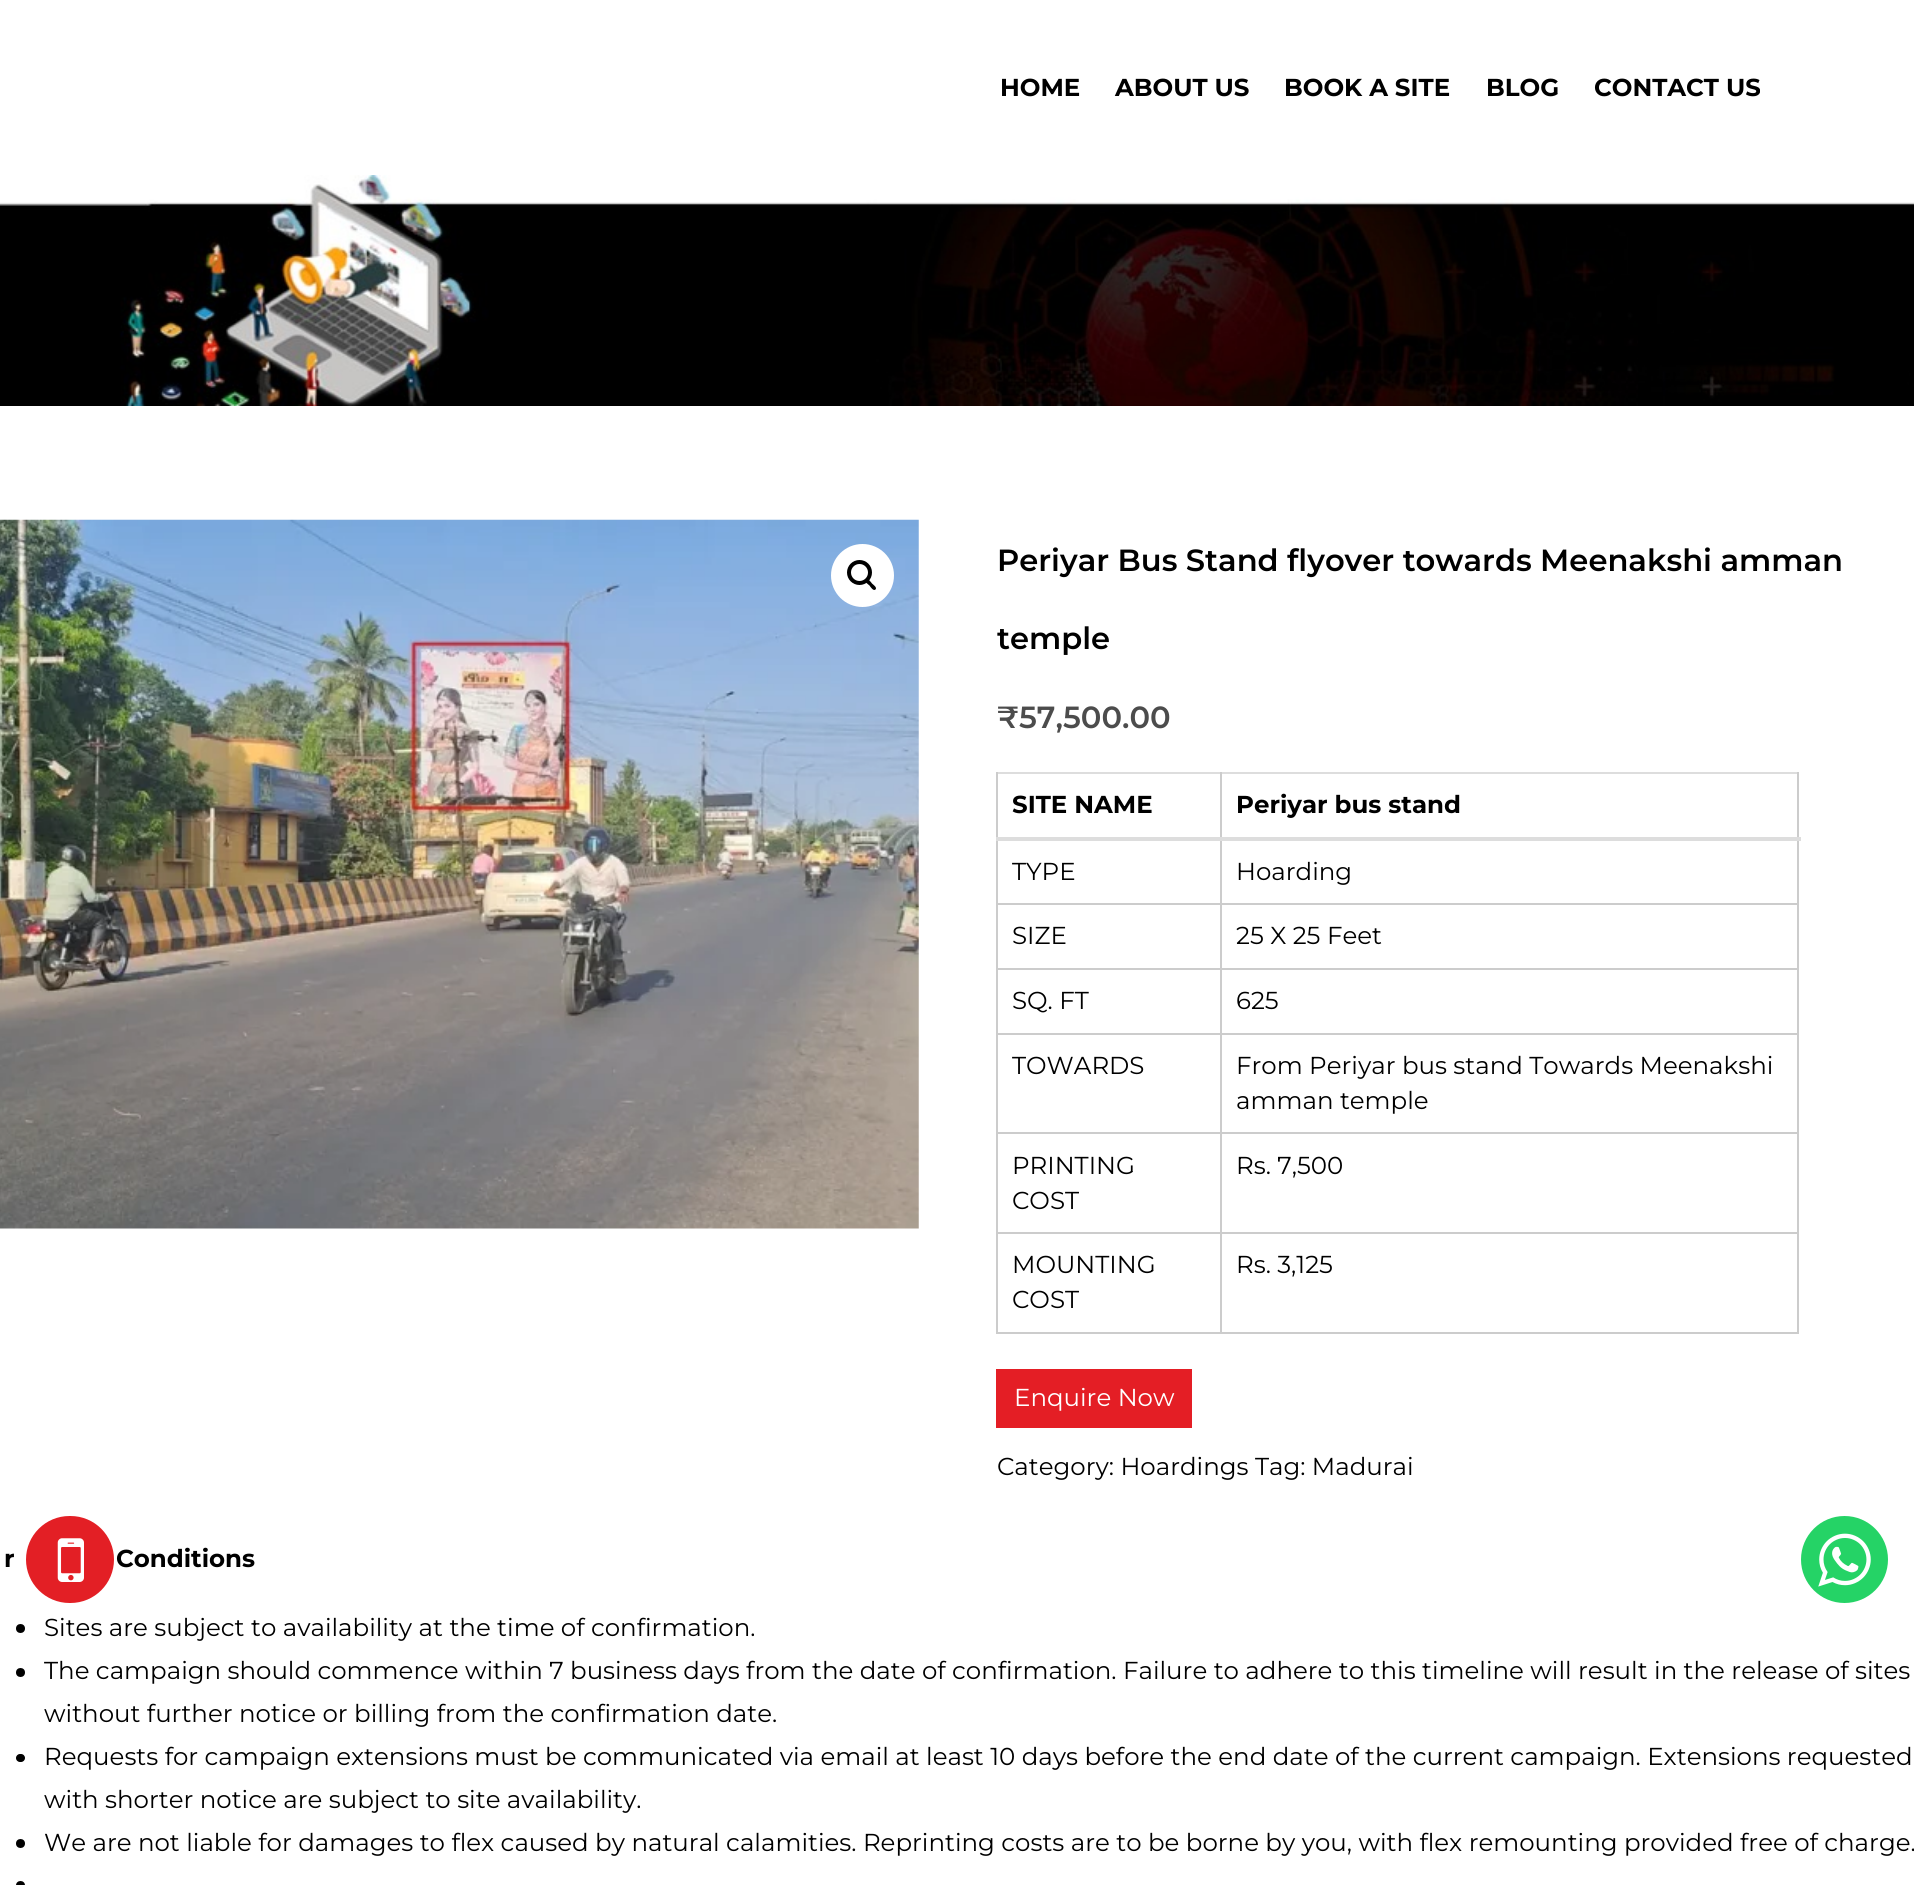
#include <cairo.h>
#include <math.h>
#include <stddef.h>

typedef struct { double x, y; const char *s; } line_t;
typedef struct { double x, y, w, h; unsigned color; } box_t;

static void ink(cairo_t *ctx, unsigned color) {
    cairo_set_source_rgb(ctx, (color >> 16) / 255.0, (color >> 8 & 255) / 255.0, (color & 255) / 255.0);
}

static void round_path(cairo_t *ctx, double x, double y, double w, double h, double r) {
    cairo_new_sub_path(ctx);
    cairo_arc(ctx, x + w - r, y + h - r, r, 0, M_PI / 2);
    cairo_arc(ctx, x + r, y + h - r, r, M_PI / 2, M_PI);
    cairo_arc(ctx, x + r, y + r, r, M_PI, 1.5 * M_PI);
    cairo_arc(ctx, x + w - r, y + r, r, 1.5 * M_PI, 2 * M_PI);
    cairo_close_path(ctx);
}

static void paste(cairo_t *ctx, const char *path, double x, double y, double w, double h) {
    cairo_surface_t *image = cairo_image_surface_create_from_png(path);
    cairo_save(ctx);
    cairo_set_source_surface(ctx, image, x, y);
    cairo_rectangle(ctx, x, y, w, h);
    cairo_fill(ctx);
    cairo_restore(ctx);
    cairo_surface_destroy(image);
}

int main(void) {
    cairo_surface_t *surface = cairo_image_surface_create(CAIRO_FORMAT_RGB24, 1914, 1885);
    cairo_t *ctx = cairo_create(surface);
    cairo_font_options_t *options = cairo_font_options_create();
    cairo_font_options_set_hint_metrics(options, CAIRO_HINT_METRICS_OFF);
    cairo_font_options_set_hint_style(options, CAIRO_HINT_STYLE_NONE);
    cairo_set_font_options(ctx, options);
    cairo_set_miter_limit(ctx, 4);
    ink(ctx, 0xFFFFFF);
    cairo_paint(ctx);
    cairo_select_font_face(ctx, "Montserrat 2 Thin", CAIRO_FONT_SLANT_NORMAL, CAIRO_FONT_WEIGHT_NORMAL);
    cairo_set_font_size(ctx, 24.5);
    ink(ctx, 0x000000);
    {
        static const line_t items[] = {
            {1000, 96, "HOME"},
            {1115, 96, "ABOUT US"},
            {1284, 96, "BOOK A SITE"},
            {1486, 96, "BLOG"},
            {1594, 96, "CONTACT US"},
        };
        for (size_t i = 0; i < sizeof items / sizeof *items; i++) {
            cairo_move_to(ctx, items[i].x, items[i].y);
            cairo_show_text(ctx, items[i].s);
        }
    }
    paste(ctx, "media/1.png", 0, 175, 1914, 231);
    paste(ctx, "media/2.png", 0, 519, 919, 710);
    ink(ctx, 0xFFFFFF);
    cairo_arc(ctx, 862.5, 575.5, 31.5, 0, 2 * M_PI);
    cairo_fill(ctx);
    cairo_arc(ctx, 859.5, 572.5, 10.5, 0, 2 * M_PI);
    ink(ctx, 0x000000);
    cairo_set_line_width(ctx, 4);
    cairo_stroke(ctx);
    cairo_new_path(ctx);
    cairo_move_to(ctx, 865.5, 579.5);
    cairo_curve_to(ctx, 867.5, 577.5, 871, 582, 872, 583.5);
    cairo_curve_to(ctx, 873, 584.5, 877.5, 587.5, 875.5, 589.5);
    cairo_curve_to(ctx, 873.5, 591.5, 870.5, 587, 869.5, 585.5);
    cairo_curve_to(ctx, 868.5, 584.5, 863.5, 581.5, 865.5, 579.5);
    cairo_close_path(ctx);
    cairo_fill(ctx);
    cairo_select_font_face(ctx, "Montserrat Thin", CAIRO_FONT_SLANT_NORMAL, CAIRO_FONT_WEIGHT_NORMAL);
    cairo_set_font_size(ctx, 30.6);
    cairo_move_to(ctx, 997, 571);
    cairo_show_text(ctx, "Periyar Bus Stand flyover towards Meenakshi amman");
    cairo_move_to(ctx, 997, 649);
    cairo_show_text(ctx, "temple");
    cairo_select_font_face(ctx, "Montserrat SemiBold", CAIRO_FONT_SLANT_NORMAL, CAIRO_FONT_WEIGHT_NORMAL);
    ink(ctx, 0x4C4C4C);
    cairo_move_to(ctx, 997, 728);
    cairo_show_text(ctx, "₹");
    cairo_select_font_face(ctx, "Montserrat Thin", CAIRO_FONT_SLANT_NORMAL, CAIRO_FONT_WEIGHT_NORMAL);
    cairo_move_to(ctx, 1019, 728);
    cairo_show_text(ctx, "57,500.00");
    {
        static const box_t items[] = {
            {996, 772, 803, 2, 0xDDDDDD},
            {1797, 837, 2, 497, 0xCCCCCC},
            {1220, 1332, 579, 2, 0xCCCCCC},
            {1220, 1232, 2, 102, 0xCCCCCC},
            {1220, 1232, 579, 2, 0xCCCCCC},
            {1220, 1132, 2, 102, 0xCCCCCC},
            {1220, 1132, 579, 2, 0xCCCCCC},
            {1220, 1033, 2, 101, 0xCCCCCC},
            {1220, 1033, 579, 2, 0xCCCCCC},
            {1220, 968, 2, 66, 0xCCCCCC},
            {1220, 968, 579, 2, 0xCCCCCC},
            {1220, 903, 2, 67, 0xCCCCCC},
            {1220, 903, 579, 2, 0xCCCCCC},
            {1220, 837, 2, 68, 0xCCCCCC},
            {1220, 772, 2, 66, 0xCCCCCC},
            {996, 1332, 226, 2, 0xCCCCCC},
            {996, 1232, 2, 102, 0xCCCCCC},
            {996, 1232, 226, 2, 0xCCCCCC},
            {996, 1132, 2, 102, 0xCCCCCC},
            {996, 1132, 226, 2, 0xCCCCCC},
            {996, 1033, 2, 101, 0xCCCCCC},
            {996, 1033, 226, 2, 0xCCCCCC},
            {996, 968, 2, 66, 0xCCCCCC},
            {996, 968, 226, 2, 0xCCCCCC},
            {996, 903, 2, 67, 0xCCCCCC},
            {996, 903, 226, 2, 0xCCCCCC},
            {996, 837, 2, 68, 0xCCCCCC},
            {996, 772, 2, 66, 0xCCCCCC},
        };
        for (size_t i = 0; i < sizeof items / sizeof *items; i++) {
            ink(ctx, items[i].color);
            cairo_rectangle(ctx, items[i].x, items[i].y, items[i].w, items[i].h);
            cairo_fill(ctx);
        }
    }
    cairo_select_font_face(ctx, "Montserrat 2 Thin", CAIRO_FONT_SLANT_NORMAL, CAIRO_FONT_WEIGHT_NORMAL);
    cairo_set_font_size(ctx, 24.5);
    ink(ctx, 0x000000);
    cairo_move_to(ctx, 1012, 813);
    cairo_show_text(ctx, "SITE NAME");
    ink(ctx, 0xCCCCCC);
    cairo_rectangle(ctx, 1797, 772, 2, 66);
    cairo_fill(ctx);
    ink(ctx, 0xDDDDDD);
    cairo_rectangle(ctx, 996, 837, 805, 4);
    cairo_fill(ctx);
    ink(ctx, 0x000000);
    cairo_move_to(ctx, 1236, 813);
    cairo_show_text(ctx, "Periyar bus stand");
    cairo_select_font_face(ctx, "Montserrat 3 Thin", CAIRO_FONT_SLANT_NORMAL, CAIRO_FONT_WEIGHT_NORMAL);
    {
        static const line_t items[] = {
            {1012, 880, "TYPE"},
            {1236, 880, "Hoarding"},
            {1012, 944, "SIZE"},
            {1236, 944, "25 X 25 Feet"},
            {1012, 1009, "SQ. FT"},
            {1236, 1009, "625"},
            {1012, 1074, "TOWARDS"},
            {1236, 1074, "From Periyar bus stand Towards Meenakshi"},
            {1236, 1109, "amman temple"},
            {1012, 1174, "PRINTING"},
            {1012, 1209, "COST"},
            {1236, 1174, "Rs. 7,500"},
            {1012, 1273, "MOUNTING"},
            {1012, 1308, "COST"},
            {1236, 1273, "Rs. 3,125"},
        };
        for (size_t i = 0; i < sizeof items / sizeof *items; i++) {
            cairo_move_to(ctx, items[i].x, items[i].y);
            cairo_show_text(ctx, items[i].s);
        }
    }
    ink(ctx, 0xE41E25);
    cairo_rectangle(ctx, 996, 1369, 196, 59);
    cairo_fill(ctx);
    ink(ctx, 0xFFFFFF);
    cairo_move_to(ctx, 1014, 1406);
    cairo_show_text(ctx, "Enquire Now");
    ink(ctx, 0x000000);
    cairo_move_to(ctx, 997, 1475);
    cairo_show_text(ctx, "Category: Hoardings Tag: Madurai");
    cairo_select_font_face(ctx, "Montserrat 2 Thin", CAIRO_FONT_SLANT_NORMAL, CAIRO_FONT_WEIGHT_NORMAL);
    cairo_move_to(ctx, 4, 1567);
    cairo_show_text(ctx, "r");
    cairo_move_to(ctx, 116, 1567);
    cairo_show_text(ctx, "Conditions");
    cairo_new_path(ctx);
    cairo_arc(ctx, 20.5, 1628.5, 4.5, 0, 2 * M_PI);
    cairo_fill(ctx);
    cairo_select_font_face(ctx, "Montserrat 3 Thin", CAIRO_FONT_SLANT_NORMAL, CAIRO_FONT_WEIGHT_NORMAL);
    cairo_move_to(ctx, 44, 1636);
    cairo_show_text(ctx, "Sites are subject to availability at the time of confirmation.");
    cairo_new_path(ctx);
    cairo_arc(ctx, 20.5, 1672.5, 4.5, 0, 2 * M_PI);
    cairo_fill(ctx);
    cairo_move_to(ctx, 44, 1679);
    cairo_show_text(ctx, "The campaign should commence within 7 business days from the date of confirmation. Failure to adhere to this timeline will result in the release of sites");
    cairo_move_to(ctx, 44, 1722);
    cairo_show_text(ctx, "without further notice or billing from the confirmation date.");
    round_path(ctx, 16, 1754, 9, 8, 4);
    cairo_fill(ctx);
    cairo_move_to(ctx, 44, 1765);
    cairo_show_text(ctx, "Requests for campaign extensions must be communicated via email at least 10 days before the end date of the current campaign. Extensions requested");
    cairo_move_to(ctx, 44, 1808);
    cairo_show_text(ctx, "with shorter notice are subject to site availability.");
    cairo_new_path(ctx);
    cairo_arc(ctx, 20.5, 1843.5, 4.5, 0, 2 * M_PI);
    cairo_fill(ctx);
    cairo_move_to(ctx, 44, 1851);
    cairo_show_text(ctx, "We are not liable for damages to flex caused by natural calamities. Reprinting costs are to be borne by you, with flex remounting provided free of charge.");
    cairo_new_path(ctx);
    cairo_arc(ctx, 20.5, 1885.5, 4.5, 0, 2 * M_PI);
    cairo_fill(ctx);
    ink(ctx, 0xE31F25);
    round_path(ctx, 26, 1516, 88, 87, 43.5);
    cairo_fill(ctx);
    paste(ctx, "media/3.png", 57, 1538, 27, 44);
    ink(ctx, 0x25D366);
    cairo_arc(ctx, 1844.5, 1559.5, 43.5, 0, 2 * M_PI);
    cairo_fill(ctx);
    paste(ctx, "media/4.png", 1818, 1533, 53, 54);
    cairo_surface_write_to_png(surface, "image.png");
    cairo_font_options_destroy(options);
    cairo_destroy(ctx);
    cairo_surface_destroy(surface);
    return 0;
}
